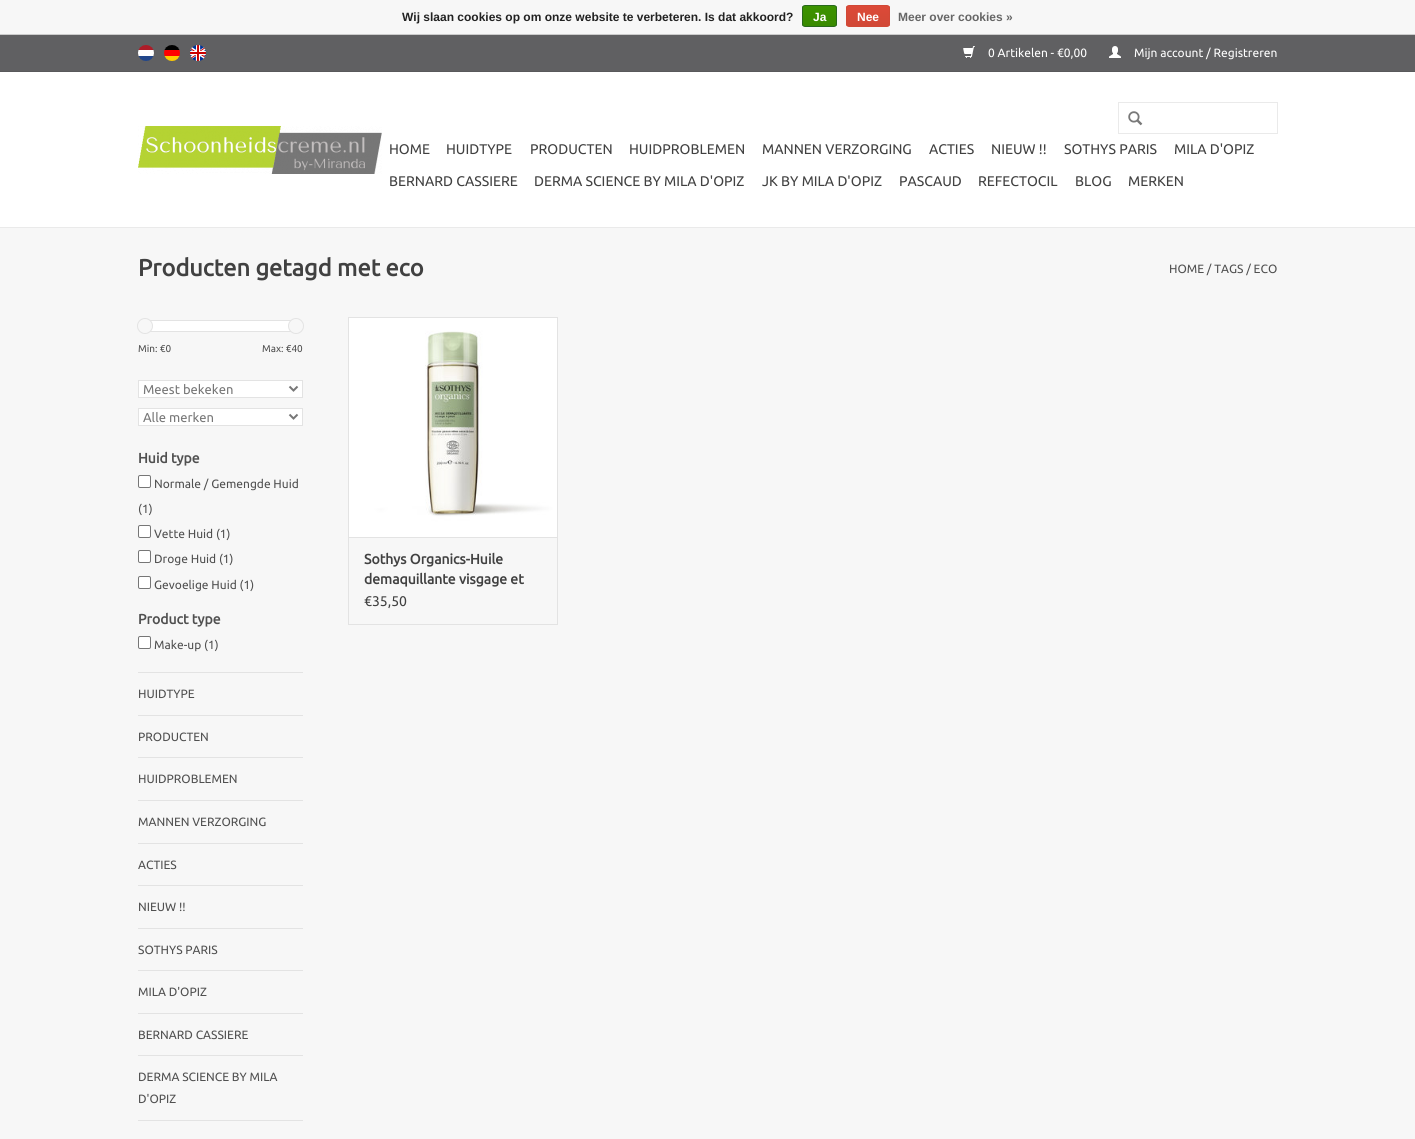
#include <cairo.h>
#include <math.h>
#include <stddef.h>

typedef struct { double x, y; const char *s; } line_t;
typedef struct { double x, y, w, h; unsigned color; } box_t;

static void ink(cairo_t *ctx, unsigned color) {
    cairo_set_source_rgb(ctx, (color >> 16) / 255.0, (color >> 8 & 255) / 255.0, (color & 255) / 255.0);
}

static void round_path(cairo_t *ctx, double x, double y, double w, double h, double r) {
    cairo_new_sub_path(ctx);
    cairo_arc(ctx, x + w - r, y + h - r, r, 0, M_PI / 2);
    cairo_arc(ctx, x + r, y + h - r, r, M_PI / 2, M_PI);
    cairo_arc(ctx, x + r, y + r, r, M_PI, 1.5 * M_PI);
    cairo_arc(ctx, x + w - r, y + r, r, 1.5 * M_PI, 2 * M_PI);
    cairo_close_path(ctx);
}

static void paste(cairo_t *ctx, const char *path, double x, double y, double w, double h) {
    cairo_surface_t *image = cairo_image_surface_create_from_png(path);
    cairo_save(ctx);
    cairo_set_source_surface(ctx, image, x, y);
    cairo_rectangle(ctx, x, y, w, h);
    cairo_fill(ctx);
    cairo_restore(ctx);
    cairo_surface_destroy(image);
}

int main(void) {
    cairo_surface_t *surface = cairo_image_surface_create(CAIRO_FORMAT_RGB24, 1415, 1139);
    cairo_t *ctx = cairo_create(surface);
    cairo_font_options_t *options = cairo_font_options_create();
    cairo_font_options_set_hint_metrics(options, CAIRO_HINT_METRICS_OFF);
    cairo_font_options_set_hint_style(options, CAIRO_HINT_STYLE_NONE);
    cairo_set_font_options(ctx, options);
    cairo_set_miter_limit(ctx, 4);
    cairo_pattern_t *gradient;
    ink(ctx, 0xF7F7F7);
    cairo_paint(ctx);
    ink(ctx, 0xCCCCCC);
    cairo_rectangle(ctx, 0, 34, 1415, 1);
    cairo_fill(ctx);
    cairo_select_font_face(ctx, "Liberation Sans", CAIRO_FONT_SLANT_NORMAL, CAIRO_FONT_WEIGHT_BOLD);
    cairo_set_font_size(ctx, 12);
    ink(ctx, 0x222222);
    cairo_move_to(ctx, 402, 21);
    cairo_show_text(ctx, "Wij slaan cookies op om onze website te verbeteren. Is dat akkoord?");
    cairo_save(ctx);
    round_path(ctx, 802, 5, 35, 22, 3);
    cairo_clip(ctx);
    gradient = cairo_pattern_create_linear(820, 6, 820, 26);
    cairo_pattern_add_color_stop_rgba(gradient, 0, 0.235, 0.576, 0, 1);
    cairo_pattern_add_color_stop_rgba(gradient, 1, 0.224, 0.541, 0, 1);
    cairo_set_source(ctx, gradient);
    cairo_pattern_destroy(gradient);
    cairo_rectangle(ctx, 802, 6, 35, 20);
    cairo_fill(ctx);
    cairo_restore(ctx);
    round_path(ctx, 802.5, 5.5, 34, 21, 2.5);
    ink(ctx, 0x29691D);
    cairo_set_line_width(ctx, 1);
    cairo_stroke(ctx);
    ink(ctx, 0xFFFFFF);
    cairo_move_to(ctx, 813, 21);
    cairo_show_text(ctx, "Ja");
    cairo_save(ctx);
    round_path(ctx, 846, 5, 44, 22, 3);
    cairo_clip(ctx);
    gradient = cairo_pattern_create_linear(868, 6, 868, 26);
    cairo_pattern_add_color_stop_rgba(gradient, 0, 0.863, 0.29, 0.22, 1);
    cairo_pattern_add_color_stop_rgba(gradient, 1, 0.82, 0.282, 0.212, 1);
    cairo_set_source(ctx, gradient);
    cairo_pattern_destroy(gradient);
    cairo_rectangle(ctx, 846, 6, 44, 20);
    cairo_fill(ctx);
    cairo_restore(ctx);
    round_path(ctx, 846.5, 5.5, 43, 21, 2.5);
    ink(ctx, 0xD14836);
    cairo_stroke(ctx);
    ink(ctx, 0xFFFFFF);
    cairo_move_to(ctx, 857, 21);
    cairo_show_text(ctx, "Nee");
    ink(ctx, 0x666666);
    cairo_move_to(ctx, 898, 21);
    cairo_show_text(ctx, "Meer over cookies »");
    {
        static const box_t items[] = {
            {0, 72, 1415, 155, 0xFFFFFF},
            {0, 227, 1415, 1, 0xEAEAEA},
            {0, 35, 1415, 36, 0x606062},
            {0, 71, 1415, 1, 0x59595B},
        };
        for (size_t i = 0; i < sizeof items / sizeof *items; i++) {
            ink(ctx, items[i].color);
            cairo_rectangle(ctx, items[i].x, items[i].y, items[i].w, items[i].h);
            cairo_fill(ctx);
        }
    }
    paste(ctx, "media/1.png", 138, 45, 16, 16);
    paste(ctx, "media/2.png", 164, 45, 16, 16);
    paste(ctx, "media/3.png", 190, 45, 16, 16);
    paste(ctx, "media/4.png", 963, 46, 12, 12);
    cairo_select_font_face(ctx, "Ubuntu", CAIRO_FONT_SLANT_NORMAL, CAIRO_FONT_WEIGHT_NORMAL);
    ink(ctx, 0xFFFFFF);
    cairo_move_to(ctx, 988, 57);
    cairo_show_text(ctx, "0 Artikelen - €0,00");
    paste(ctx, "media/5.png", 1109, 46, 12, 12);
    cairo_move_to(ctx, 1134, 57);
    cairo_show_text(ctx, "Mijn account / Registreren");
    paste(ctx, "media/6.png", 138, 126, 244, 48);
    cairo_rectangle(ctx, 1118.5, 102.5, 159, 31);
    ink(ctx, 0xEAEAEA);
    cairo_stroke(ctx);
    paste(ctx, "media/7.png", 1128, 111, 15, 15);
    cairo_set_font_size(ctx, 14);
    ink(ctx, 0x414141);
    {
        static const line_t items[] = {
            {389, 154, "HOME"},
            {446, 154, "HUIDTYPE"},
            {530, 154, "PRODUCTEN"},
            {629, 154, "HUIDPROBLEMEN"},
            {762, 154, "MANNEN VERZORGING"},
            {929, 154, "ACTIES"},
            {991, 154, "NIEUW !!"},
            {1064, 154, "SOTHYS PARIS"},
            {1174, 154, "MILA D'OPIZ"},
            {389, 186, "BERNARD CASSIERE"},
            {534, 186, "DERMA SCIENCE BY MILA D'OPIZ"},
            {762, 186, "JK BY MILA D'OPIZ"},
            {899, 186, "PASCAUD"},
            {978, 186, "REFECTOCIL"},
            {1075, 186, "BLOG"},
            {1128, 186, "MERKEN"},
        };
        for (size_t i = 0; i < sizeof items / sizeof *items; i++) {
            cairo_move_to(ctx, items[i].x, items[i].y);
            cairo_show_text(ctx, items[i].s);
        }
    }
    cairo_select_font_face(ctx, "Ubuntu", CAIRO_FONT_SLANT_NORMAL, CAIRO_FONT_WEIGHT_BOLD);
    cairo_set_font_size(ctx, 23.6);
    cairo_move_to(ctx, 138, 276);
    cairo_show_text(ctx, "Producten getagd met eco");
    cairo_select_font_face(ctx, "Ubuntu", CAIRO_FONT_SLANT_NORMAL, CAIRO_FONT_WEIGHT_NORMAL);
    cairo_set_font_size(ctx, 12);
    ink(ctx, 0x505050);
    cairo_move_to(ctx, 1169, 273);
    cairo_show_text(ctx, "HOME / TAGS / ECO");
    ink(ctx, 0xE3E3E3);
    cairo_rectangle(ctx, 138, 672, 165, 1);
    cairo_fill(ctx);
    ink(ctx, 0xFFFFFF);
    cairo_rectangle(ctx, 151, 321, 139, 10);
    cairo_fill(ctx);
    cairo_rectangle(ctx, 146.5, 320.5, 150, 11);
    ink(ctx, 0xE3E3E3);
    cairo_stroke(ctx);
    ink(ctx, 0xF7F7F7);
    cairo_arc(ctx, 145, 326, 7.5, 0, 2 * M_PI);
    cairo_fill_preserve(ctx);
    ink(ctx, 0xE3E3E3);
    cairo_stroke(ctx);
    ink(ctx, 0xF7F7F7);
    cairo_arc(ctx, 296, 326, 7.5, 0, 2 * M_PI);
    cairo_fill_preserve(ctx);
    ink(ctx, 0xE3E3E3);
    cairo_stroke(ctx);
    cairo_set_font_size(ctx, 10);
    ink(ctx, 0x505050);
    cairo_move_to(ctx, 138, 352);
    cairo_show_text(ctx, "Min: €0");
    cairo_move_to(ctx, 262, 352);
    cairo_show_text(ctx, "Max: €40");
    ink(ctx, 0xFFFFFF);
    cairo_rectangle(ctx, 138.5, 380.5, 164, 17);
    cairo_fill_preserve(ctx);
    ink(ctx, 0xE3E3E3);
    cairo_stroke(ctx);
    cairo_new_path(ctx);
    cairo_move_to(ctx, 289.5, 386.5);
    cairo_line_to(ctx, 293.5, 390.5);
    cairo_line_to(ctx, 297.5, 386.5);
    ink(ctx, 0x777777);
    cairo_set_line_width(ctx, 2);
    cairo_stroke(ctx);
    cairo_set_font_size(ctx, 13);
    cairo_move_to(ctx, 143, 394);
    cairo_show_text(ctx, "Meest bekeken");
    ink(ctx, 0xFFFFFF);
    cairo_rectangle(ctx, 138.5, 408.5, 164, 17);
    cairo_fill_preserve(ctx);
    ink(ctx, 0xE3E3E3);
    cairo_set_line_width(ctx, 1);
    cairo_stroke(ctx);
    cairo_new_path(ctx);
    cairo_move_to(ctx, 289.5, 414.5);
    cairo_line_to(ctx, 293.5, 418.5);
    cairo_line_to(ctx, 297.5, 414.5);
    ink(ctx, 0x777777);
    cairo_set_line_width(ctx, 2);
    cairo_stroke(ctx);
    cairo_move_to(ctx, 143, 422);
    cairo_show_text(ctx, "Alle merken");
    cairo_select_font_face(ctx, "Ubuntu", CAIRO_FONT_SLANT_NORMAL, CAIRO_FONT_WEIGHT_BOLD);
    cairo_set_font_size(ctx, 14);
    ink(ctx, 0x505050);
    cairo_move_to(ctx, 138, 463);
    cairo_show_text(ctx, "Huid type");
    ink(ctx, 0xFFFFFF);
    round_path(ctx, 138.5, 475.5, 12, 12, 1.5);
    cairo_fill_preserve(ctx);
    ink(ctx, 0x767676);
    cairo_set_line_width(ctx, 1);
    cairo_stroke(ctx);
    cairo_select_font_face(ctx, "Ubuntu", CAIRO_FONT_SLANT_NORMAL, CAIRO_FONT_WEIGHT_NORMAL);
    cairo_set_font_size(ctx, 12);
    ink(ctx, 0x505050);
    cairo_move_to(ctx, 154, 488);
    cairo_show_text(ctx, "Normale / Gemengde Huid");
    cairo_move_to(ctx, 138, 513);
    cairo_show_text(ctx, "(1)");
    ink(ctx, 0xFFFFFF);
    round_path(ctx, 138.5, 525.5, 12, 12, 1.5);
    cairo_fill_preserve(ctx);
    ink(ctx, 0x767676);
    cairo_stroke(ctx);
    ink(ctx, 0x505050);
    cairo_move_to(ctx, 154, 538);
    cairo_show_text(ctx, "Vette Huid (1)");
    ink(ctx, 0xFFFFFF);
    round_path(ctx, 138.5, 550.5, 12, 12, 1.5);
    cairo_fill_preserve(ctx);
    ink(ctx, 0x767676);
    cairo_stroke(ctx);
    ink(ctx, 0x505050);
    cairo_move_to(ctx, 154, 563);
    cairo_show_text(ctx, "Droge Huid (1)");
    ink(ctx, 0xFFFFFF);
    round_path(ctx, 138.5, 576.5, 12, 12, 1.5);
    cairo_fill_preserve(ctx);
    ink(ctx, 0x767676);
    cairo_stroke(ctx);
    ink(ctx, 0x505050);
    cairo_move_to(ctx, 154, 589);
    cairo_show_text(ctx, "Gevoelige Huid (1)");
    cairo_select_font_face(ctx, "Ubuntu", CAIRO_FONT_SLANT_NORMAL, CAIRO_FONT_WEIGHT_BOLD);
    cairo_set_font_size(ctx, 14);
    cairo_move_to(ctx, 138, 624);
    cairo_show_text(ctx, "Product type");
    ink(ctx, 0xFFFFFF);
    round_path(ctx, 138.5, 636.5, 12, 12, 1.5);
    cairo_fill_preserve(ctx);
    ink(ctx, 0x767676);
    cairo_stroke(ctx);
    cairo_select_font_face(ctx, "Ubuntu", CAIRO_FONT_SLANT_NORMAL, CAIRO_FONT_WEIGHT_NORMAL);
    cairo_set_font_size(ctx, 12);
    ink(ctx, 0x505050);
    cairo_move_to(ctx, 154, 649);
    cairo_show_text(ctx, "Make-up (1)");
    ink(ctx, 0xE3E3E3);
    cairo_rectangle(ctx, 138, 715, 165, 1);
    cairo_fill(ctx);
    ink(ctx, 0x505050);
    cairo_move_to(ctx, 138, 698);
    cairo_show_text(ctx, "HUIDTYPE");
    ink(ctx, 0xE3E3E3);
    cairo_rectangle(ctx, 138, 757, 165, 1);
    cairo_fill(ctx);
    ink(ctx, 0x505050);
    cairo_move_to(ctx, 138, 741);
    cairo_show_text(ctx, "PRODUCTEN");
    ink(ctx, 0xE3E3E3);
    cairo_rectangle(ctx, 138, 800, 165, 1);
    cairo_fill(ctx);
    ink(ctx, 0x505050);
    cairo_move_to(ctx, 138, 783);
    cairo_show_text(ctx, "HUIDPROBLEMEN");
    ink(ctx, 0xE3E3E3);
    cairo_rectangle(ctx, 138, 843, 165, 1);
    cairo_fill(ctx);
    ink(ctx, 0x505050);
    cairo_move_to(ctx, 138, 826);
    cairo_show_text(ctx, "MANNEN VERZORGING");
    ink(ctx, 0xE3E3E3);
    cairo_rectangle(ctx, 138, 885, 165, 1);
    cairo_fill(ctx);
    ink(ctx, 0x505050);
    cairo_move_to(ctx, 138, 869);
    cairo_show_text(ctx, "ACTIES");
    ink(ctx, 0xE3E3E3);
    cairo_rectangle(ctx, 138, 928, 165, 1);
    cairo_fill(ctx);
    ink(ctx, 0x505050);
    cairo_move_to(ctx, 138, 911);
    cairo_show_text(ctx, "NIEUW !!");
    ink(ctx, 0xE3E3E3);
    cairo_rectangle(ctx, 138, 970, 165, 1);
    cairo_fill(ctx);
    ink(ctx, 0x505050);
    cairo_move_to(ctx, 138, 954);
    cairo_show_text(ctx, "SOTHYS PARIS");
    ink(ctx, 0xE3E3E3);
    cairo_rectangle(ctx, 138, 1013, 165, 1);
    cairo_fill(ctx);
    ink(ctx, 0x505050);
    cairo_move_to(ctx, 138, 996);
    cairo_show_text(ctx, "MILA D'OPIZ");
    ink(ctx, 0xE3E3E3);
    cairo_rectangle(ctx, 138, 1055, 165, 1);
    cairo_fill(ctx);
    ink(ctx, 0x505050);
    cairo_move_to(ctx, 138, 1039);
    cairo_show_text(ctx, "BERNARD CASSIERE");
    ink(ctx, 0xE3E3E3);
    cairo_rectangle(ctx, 138, 1120, 165, 1);
    cairo_fill(ctx);
    ink(ctx, 0x505050);
    cairo_move_to(ctx, 138, 1081);
    cairo_show_text(ctx, "DERMA SCIENCE BY MILA");
    cairo_move_to(ctx, 138, 1103);
    cairo_show_text(ctx, "D'OPIZ");
    {
        static const box_t items[] = {
            {348, 317, 210, 1, 0xE3E3E3},
            {557, 317, 1, 220, 0xE3E3E3},
            {348, 317, 1, 220, 0xE3E3E3},
        };
        for (size_t i = 0; i < sizeof items / sizeof *items; i++) {
            ink(ctx, items[i].color);
            cairo_rectangle(ctx, items[i].x, items[i].y, items[i].w, items[i].h);
            cairo_fill(ctx);
        }
    }
    paste(ctx, "media/8.png", 349, 318, 208, 219);
    cairo_rectangle(ctx, 348.5, 537.5, 209, 87);
    cairo_stroke(ctx);
    cairo_select_font_face(ctx, "Ubuntu", CAIRO_FONT_SLANT_NORMAL, CAIRO_FONT_WEIGHT_BOLD);
    cairo_set_font_size(ctx, 14);
    ink(ctx, 0x414141);
    cairo_move_to(ctx, 364, 564);
    cairo_show_text(ctx, "Sothys Organics-Huile");
    cairo_move_to(ctx, 364, 584);
    cairo_show_text(ctx, "demaquillante visgage et");
    cairo_select_font_face(ctx, "Ubuntu", CAIRO_FONT_SLANT_NORMAL, CAIRO_FONT_WEIGHT_NORMAL);
    cairo_move_to(ctx, 364, 606);
    cairo_show_text(ctx, "€35,50");
    cairo_surface_write_to_png(surface, "image.png");
    cairo_font_options_destroy(options);
    cairo_destroy(ctx);
    cairo_surface_destroy(surface);
    return 0;
}
